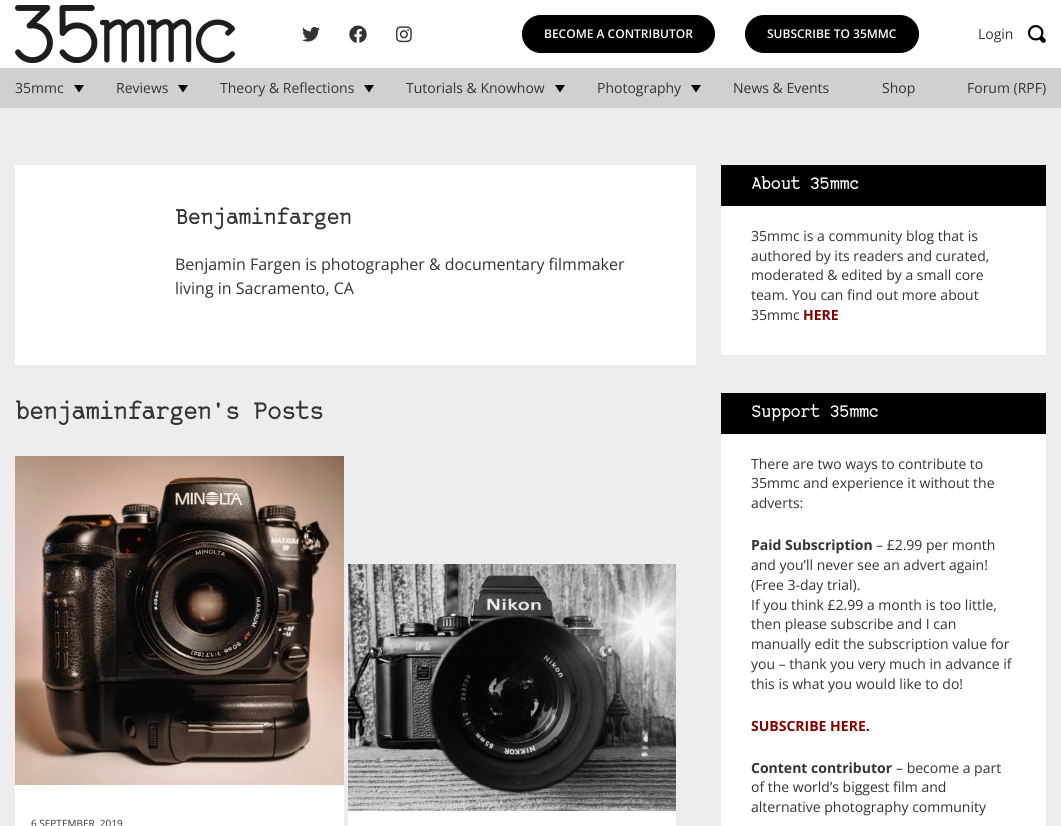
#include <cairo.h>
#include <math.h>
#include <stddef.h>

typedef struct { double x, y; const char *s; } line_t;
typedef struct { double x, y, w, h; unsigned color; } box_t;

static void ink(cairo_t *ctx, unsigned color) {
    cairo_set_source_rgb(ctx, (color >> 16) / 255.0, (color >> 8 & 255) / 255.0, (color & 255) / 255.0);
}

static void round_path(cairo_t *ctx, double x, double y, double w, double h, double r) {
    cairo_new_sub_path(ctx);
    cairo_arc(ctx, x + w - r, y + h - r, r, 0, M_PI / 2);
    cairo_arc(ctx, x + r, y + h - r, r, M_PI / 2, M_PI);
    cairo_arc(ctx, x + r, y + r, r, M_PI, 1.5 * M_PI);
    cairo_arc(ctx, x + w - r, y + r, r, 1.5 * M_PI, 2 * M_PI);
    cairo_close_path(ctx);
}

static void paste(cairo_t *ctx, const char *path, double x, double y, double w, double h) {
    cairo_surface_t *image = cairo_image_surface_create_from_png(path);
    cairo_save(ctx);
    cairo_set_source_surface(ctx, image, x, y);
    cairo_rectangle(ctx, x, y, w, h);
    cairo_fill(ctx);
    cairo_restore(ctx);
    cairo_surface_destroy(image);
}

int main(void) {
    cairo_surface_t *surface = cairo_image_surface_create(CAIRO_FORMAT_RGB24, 1061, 826);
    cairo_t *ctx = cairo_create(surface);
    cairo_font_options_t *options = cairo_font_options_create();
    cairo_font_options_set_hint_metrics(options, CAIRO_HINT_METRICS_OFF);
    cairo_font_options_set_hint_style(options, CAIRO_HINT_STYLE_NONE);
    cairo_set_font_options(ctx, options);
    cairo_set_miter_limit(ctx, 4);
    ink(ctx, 0xEDEDED);
    cairo_paint(ctx);
    ink(ctx, 0xFFFFFF);
    cairo_rectangle(ctx, 0, 0, 1061, 68);
    cairo_fill(ctx);
    paste(ctx, "media/1.png", 15, 5, 220, 58);
    paste(ctx, "media/2.png", 302, 27, 18, 15);
    paste(ctx, "media/3.png", 349, 25, 18, 18);
    paste(ctx, "media/4.png", 396, 26, 16, 17);
    ink(ctx, 0x000000);
    round_path(ctx, 522.5, 15.5, 192, 37, 18.5);
    cairo_fill_preserve(ctx);
    cairo_set_line_width(ctx, 1);
    cairo_stroke(ctx);
    cairo_select_font_face(ctx, "Open Sans SemiBold", CAIRO_FONT_SLANT_NORMAL, CAIRO_FONT_WEIGHT_NORMAL);
    cairo_set_font_size(ctx, 12);
    ink(ctx, 0xFFFFFF);
    cairo_move_to(ctx, 544, 38);
    cairo_show_text(ctx, "BECOME A CONTRIBUTOR");
    ink(ctx, 0x000000);
    round_path(ctx, 745.5, 15.5, 173, 37, 18.5);
    cairo_fill_preserve(ctx);
    cairo_stroke(ctx);
    ink(ctx, 0xFFFFFF);
    cairo_move_to(ctx, 767, 38);
    cairo_show_text(ctx, "SUBSCRIBE TO 35MMC");
    cairo_select_font_face(ctx, "Open Sans", CAIRO_FONT_SLANT_NORMAL, CAIRO_FONT_WEIGHT_NORMAL);
    cairo_set_font_size(ctx, 14);
    ink(ctx, 0x333333);
    cairo_move_to(ctx, 978, 39);
    cairo_show_text(ctx, "Login");
    paste(ctx, "media/5.png", 1028, 25, 18, 18);
    ink(ctx, 0xD0D0D0);
    cairo_rectangle(ctx, 0, 68, 1061, 40);
    cairo_fill(ctx);
    ink(ctx, 0x333333);
    cairo_move_to(ctx, 15, 93);
    cairo_show_text(ctx, "35mmc");
    ink(ctx, 0x000000);
    cairo_new_path(ctx);
    cairo_move_to(ctx, 84, 85);
    cairo_line_to(ctx, 79, 92.5);
    cairo_line_to(ctx, 74, 85);
    cairo_close_path(ctx);
    cairo_fill(ctx);
    ink(ctx, 0x333333);
    cairo_move_to(ctx, 116, 93);
    cairo_show_text(ctx, "Reviews");
    ink(ctx, 0x000000);
    cairo_new_path(ctx);
    cairo_move_to(ctx, 188, 85);
    cairo_line_to(ctx, 183, 92.5);
    cairo_line_to(ctx, 178, 85);
    cairo_close_path(ctx);
    cairo_fill(ctx);
    ink(ctx, 0x333333);
    cairo_move_to(ctx, 220, 93);
    cairo_show_text(ctx, "Theory & Reflections");
    ink(ctx, 0x000000);
    cairo_new_path(ctx);
    cairo_move_to(ctx, 374, 85);
    cairo_line_to(ctx, 369, 92.5);
    cairo_line_to(ctx, 364, 85);
    cairo_close_path(ctx);
    cairo_fill(ctx);
    ink(ctx, 0x333333);
    cairo_move_to(ctx, 406, 93);
    cairo_show_text(ctx, "Tutorials & Knowhow");
    ink(ctx, 0x000000);
    cairo_new_path(ctx);
    cairo_move_to(ctx, 565, 85);
    cairo_line_to(ctx, 560, 92.5);
    cairo_line_to(ctx, 555, 85);
    cairo_close_path(ctx);
    cairo_fill(ctx);
    ink(ctx, 0x333333);
    cairo_move_to(ctx, 597, 93);
    cairo_show_text(ctx, "Photography");
    ink(ctx, 0x000000);
    cairo_new_path(ctx);
    cairo_move_to(ctx, 701, 85);
    cairo_line_to(ctx, 696, 92.5);
    cairo_line_to(ctx, 691, 85);
    cairo_close_path(ctx);
    cairo_fill(ctx);
    ink(ctx, 0x333333);
    {
        static const line_t items[] = {
            {733, 93, "News & Events"},
            {882, 93, "Shop"},
            {967, 93, "Forum (RPF)"},
        };
        for (size_t i = 0; i < sizeof items / sizeof *items; i++) {
            cairo_move_to(ctx, items[i].x, items[i].y);
            cairo_show_text(ctx, items[i].s);
        }
    }
    ink(ctx, 0xFFFFFF);
    cairo_rectangle(ctx, 15, 165, 681, 200);
    cairo_fill(ctx);
    cairo_select_font_face(ctx, "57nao", CAIRO_FONT_SLANT_NORMAL, CAIRO_FONT_WEIGHT_BOLD);
    cairo_set_font_size(ctx, 18);
    ink(ctx, 0x333333);
    cairo_move_to(ctx, 175, 224);
    cairo_show_text(ctx, "Benjaminfargen");
    cairo_select_font_face(ctx, "Open Sans", CAIRO_FONT_SLANT_NORMAL, CAIRO_FONT_WEIGHT_NORMAL);
    cairo_set_font_size(ctx, 16);
    cairo_move_to(ctx, 175, 270);
    cairo_show_text(ctx, "Benjamin Fargen is photographer & documentary filmmaker");
    cairo_move_to(ctx, 175, 294);
    cairo_show_text(ctx, "living in Sacramento, CA");
    cairo_select_font_face(ctx, "57nao", CAIRO_FONT_SLANT_NORMAL, CAIRO_FONT_WEIGHT_BOLD);
    cairo_set_font_size(ctx, 20);
    cairo_move_to(ctx, 15, 419);
    cairo_show_text(ctx, "benjaminfargen's Posts");
    paste(ctx, "media/6.png", 15, 456, 329, 329);
    ink(ctx, 0xFFFFFF);
    cairo_rectangle(ctx, 15, 785, 329, 41);
    cairo_fill(ctx);
    cairo_select_font_face(ctx, "Open Sans", CAIRO_FONT_SLANT_NORMAL, CAIRO_FONT_WEIGHT_NORMAL);
    cairo_set_font_size(ctx, 10);
    ink(ctx, 0x333333);
    cairo_move_to(ctx, 31, 827);
    cairo_show_text(ctx, "6 SEPTEMBER, 2019");
    paste(ctx, "media/7.png", 348, 564, 328, 247);
    {
        static const box_t items[] = {
            {348, 811, 328, 15, 0xFFFFFF},
            {721, 206, 325, 149, 0xFFFFFF},
            {721, 165, 325, 41, 0x000000},
        };
        for (size_t i = 0; i < sizeof items / sizeof *items; i++) {
            ink(ctx, items[i].color);
            cairo_rectangle(ctx, items[i].x, items[i].y, items[i].w, items[i].h);
            cairo_fill(ctx);
        }
    }
    cairo_select_font_face(ctx, "57nao", CAIRO_FONT_SLANT_NORMAL, CAIRO_FONT_WEIGHT_BOLD);
    cairo_set_font_size(ctx, 14);
    ink(ctx, 0xFFFFFF);
    cairo_move_to(ctx, 751, 189);
    cairo_show_text(ctx, "About 35mmc");
    cairo_select_font_face(ctx, "Open Sans", CAIRO_FONT_SLANT_NORMAL, CAIRO_FONT_WEIGHT_NORMAL);
    ink(ctx, 0x333333);
    {
        static const line_t items[] = {
            {751, 241, "35mmc is a community blog that is"},
            {751, 261, "authored by its readers and curated,"},
            {751, 280, "moderated & edited by a small core"},
            {751, 300, "team. You can find out more about"},
            {751, 320, "35mmc"},
        };
        for (size_t i = 0; i < sizeof items / sizeof *items; i++) {
            cairo_move_to(ctx, items[i].x, items[i].y);
            cairo_show_text(ctx, items[i].s);
        }
    }
    cairo_select_font_face(ctx, "Open Sans", CAIRO_FONT_SLANT_NORMAL, CAIRO_FONT_WEIGHT_BOLD);
    ink(ctx, 0x860000);
    cairo_move_to(ctx, 803, 320);
    cairo_show_text(ctx, "HERE");
    ink(ctx, 0xFFFFFF);
    cairo_rectangle(ctx, 721, 434, 325, 392);
    cairo_fill(ctx);
    ink(ctx, 0x000000);
    cairo_rectangle(ctx, 721, 393, 325, 41);
    cairo_fill(ctx);
    cairo_select_font_face(ctx, "57nao", CAIRO_FONT_SLANT_NORMAL, CAIRO_FONT_WEIGHT_BOLD);
    ink(ctx, 0xFFFFFF);
    cairo_move_to(ctx, 751, 417);
    cairo_show_text(ctx, "Support 35mmc");
    cairo_select_font_face(ctx, "Open Sans", CAIRO_FONT_SLANT_NORMAL, CAIRO_FONT_WEIGHT_NORMAL);
    ink(ctx, 0x333333);
    {
        static const line_t items[] = {
            {751, 469, "There are two ways to contribute to"},
            {751, 488, "35mmc and experience it without the"},
            {751, 508, "adverts:"},
        };
        for (size_t i = 0; i < sizeof items / sizeof *items; i++) {
            cairo_move_to(ctx, items[i].x, items[i].y);
            cairo_show_text(ctx, items[i].s);
        }
    }
    cairo_select_font_face(ctx, "Open Sans", CAIRO_FONT_SLANT_NORMAL, CAIRO_FONT_WEIGHT_BOLD);
    cairo_move_to(ctx, 751, 550);
    cairo_show_text(ctx, "Paid Subscription");
    cairo_select_font_face(ctx, "Open Sans", CAIRO_FONT_SLANT_NORMAL, CAIRO_FONT_WEIGHT_NORMAL);
    {
        static const line_t items[] = {
            {876, 550, "– £2.99 per month"},
            {751, 570, "and you’ll never see an advert again!"},
            {751, 590, "(Free 3-day trial)."},
            {751, 610, "If you think £2.99 a month is too little,"},
            {751, 629, "then please subscribe and I can"},
            {751, 649, "manually edit the subscription value for"},
            {751, 669, "you – thank you very much in advance if"},
            {751, 689, "this is what you would like to do!"},
        };
        for (size_t i = 0; i < sizeof items / sizeof *items; i++) {
            cairo_move_to(ctx, items[i].x, items[i].y);
            cairo_show_text(ctx, items[i].s);
        }
    }
    cairo_select_font_face(ctx, "Open Sans", CAIRO_FONT_SLANT_NORMAL, CAIRO_FONT_WEIGHT_BOLD);
    ink(ctx, 0x860000);
    cairo_move_to(ctx, 751, 731);
    cairo_show_text(ctx, "SUBSCRIBE HERE.");
    ink(ctx, 0x333333);
    cairo_move_to(ctx, 751, 773);
    cairo_show_text(ctx, "Content contributor");
    cairo_select_font_face(ctx, "Open Sans", CAIRO_FONT_SLANT_NORMAL, CAIRO_FONT_WEIGHT_NORMAL);
    {
        static const line_t items[] = {
            {896, 773, "– become a part"},
            {751, 792, "of the world’s biggest film and"},
            {751, 812, "alternative photography community"},
        };
        for (size_t i = 0; i < sizeof items / sizeof *items; i++) {
            cairo_move_to(ctx, items[i].x, items[i].y);
            cairo_show_text(ctx, items[i].s);
        }
    }
    cairo_surface_write_to_png(surface, "image.png");
    cairo_font_options_destroy(options);
    cairo_destroy(ctx);
    cairo_surface_destroy(surface);
    return 0;
}
